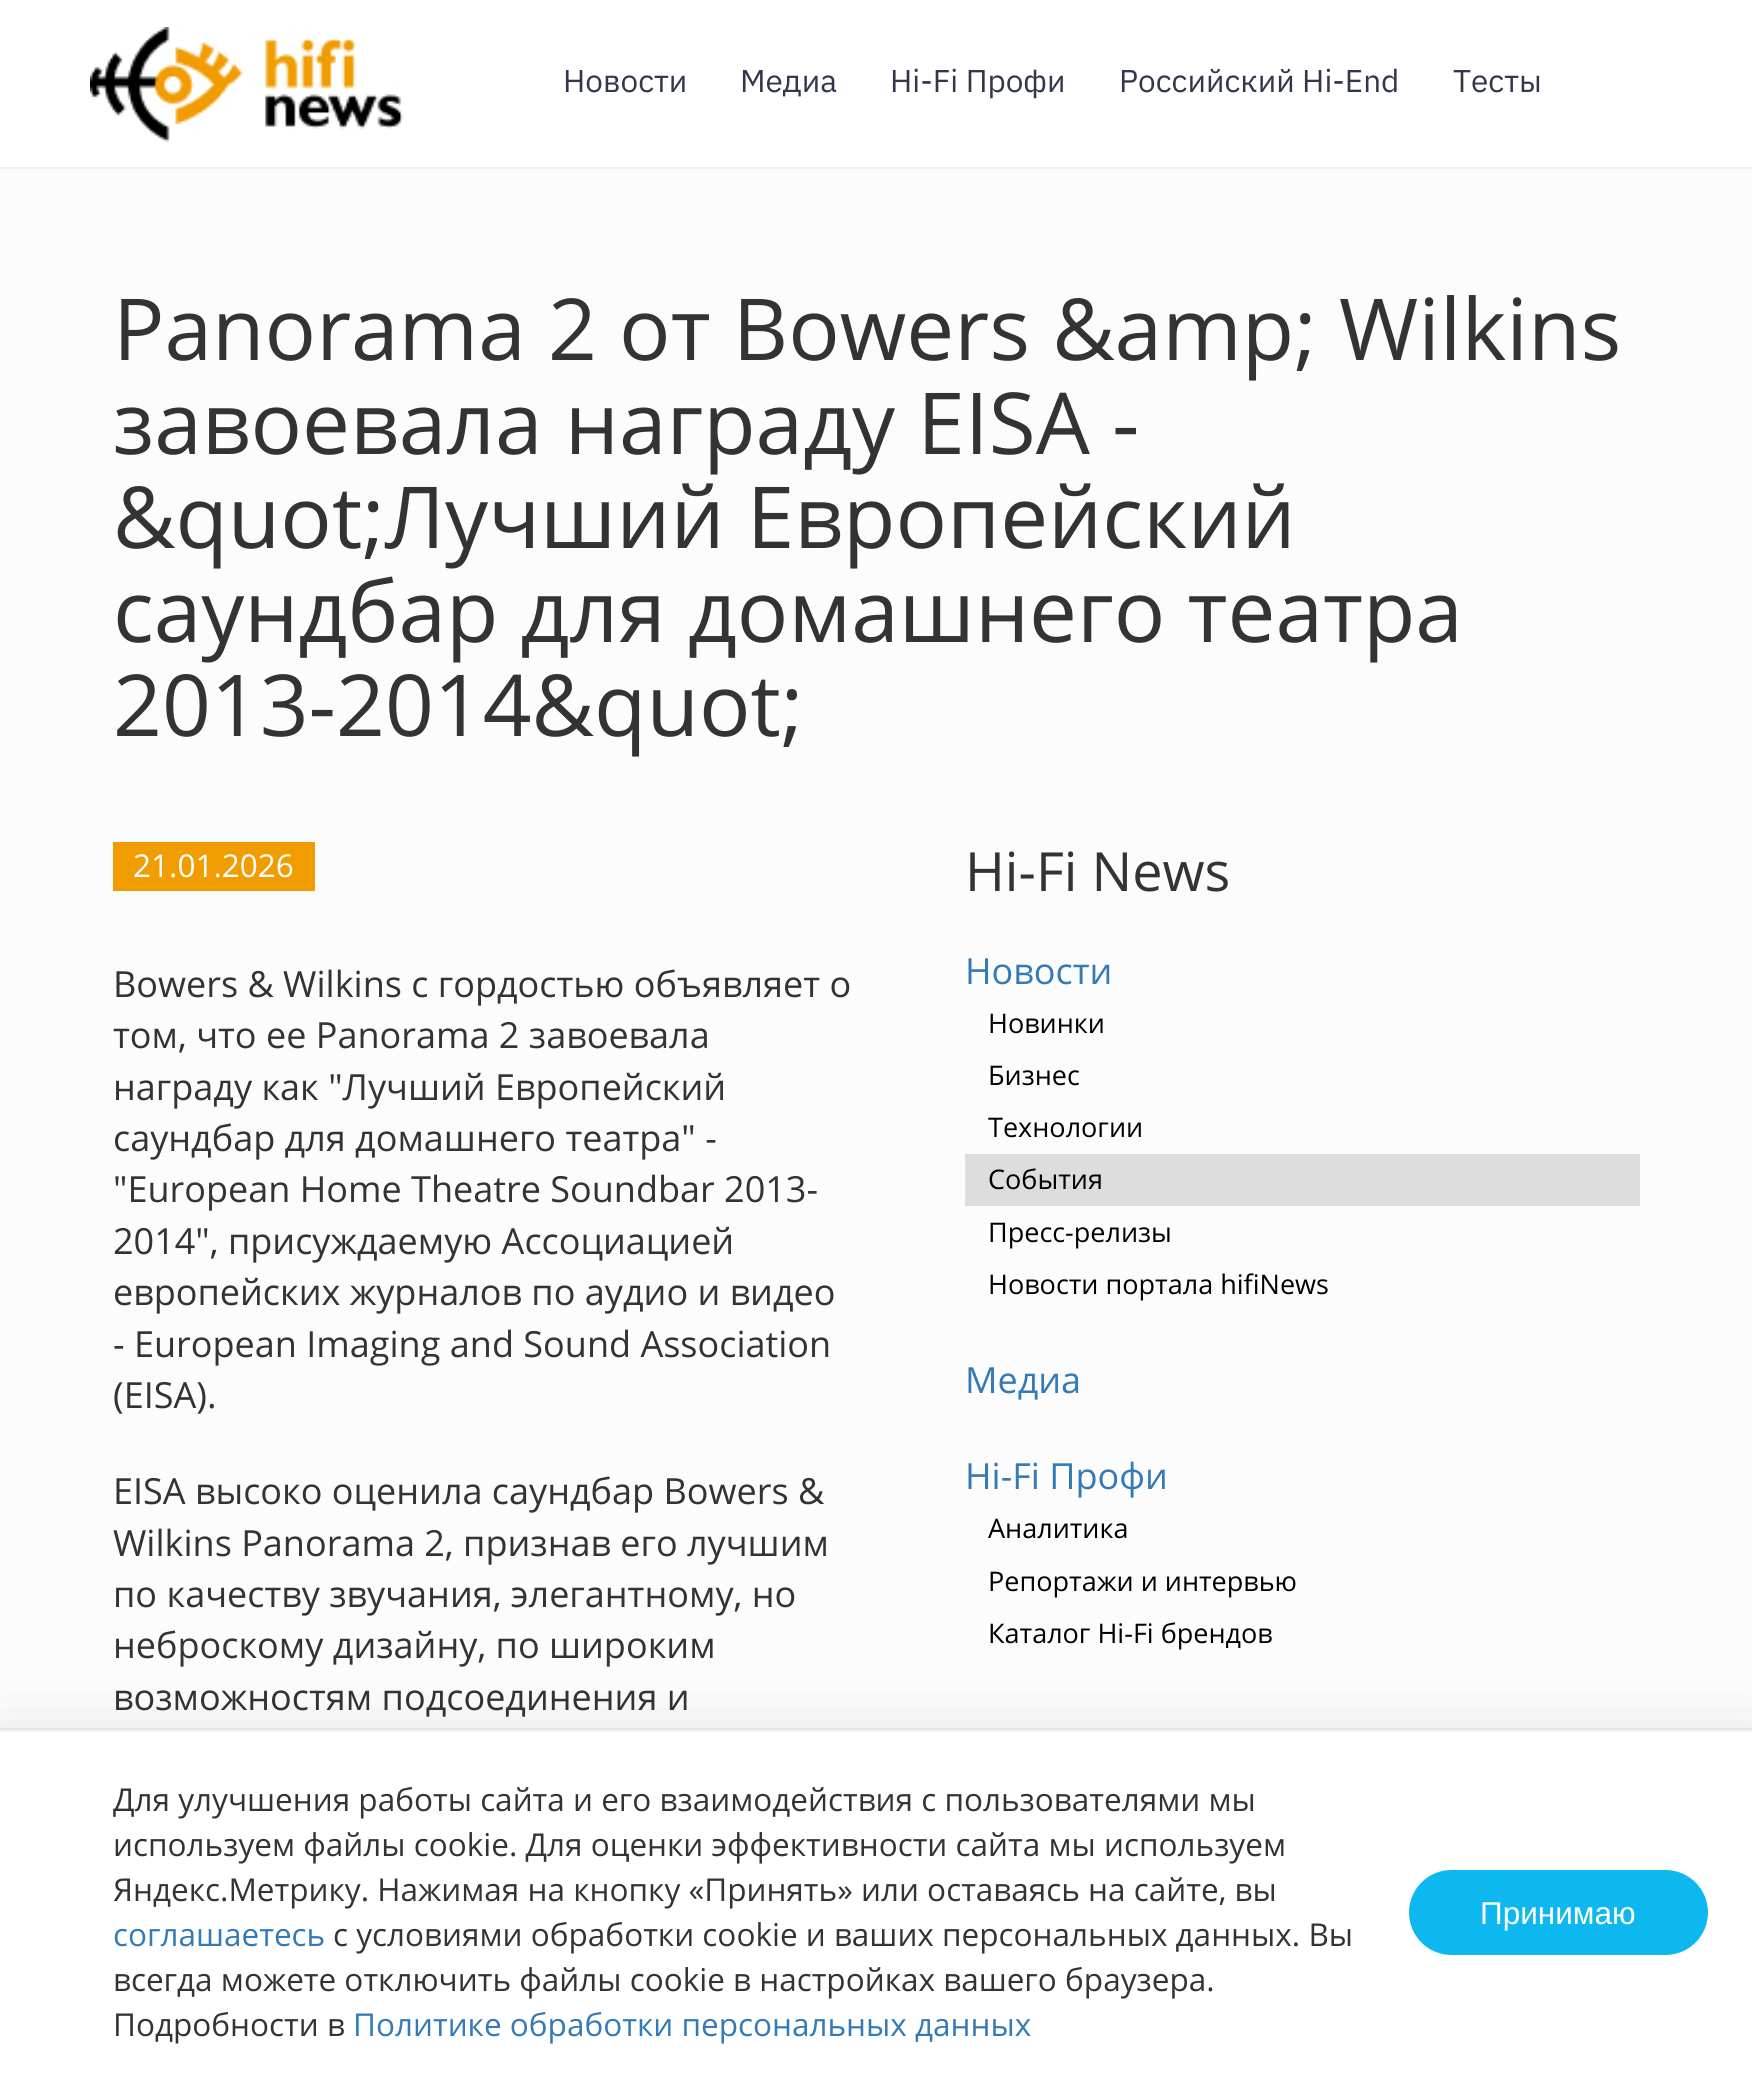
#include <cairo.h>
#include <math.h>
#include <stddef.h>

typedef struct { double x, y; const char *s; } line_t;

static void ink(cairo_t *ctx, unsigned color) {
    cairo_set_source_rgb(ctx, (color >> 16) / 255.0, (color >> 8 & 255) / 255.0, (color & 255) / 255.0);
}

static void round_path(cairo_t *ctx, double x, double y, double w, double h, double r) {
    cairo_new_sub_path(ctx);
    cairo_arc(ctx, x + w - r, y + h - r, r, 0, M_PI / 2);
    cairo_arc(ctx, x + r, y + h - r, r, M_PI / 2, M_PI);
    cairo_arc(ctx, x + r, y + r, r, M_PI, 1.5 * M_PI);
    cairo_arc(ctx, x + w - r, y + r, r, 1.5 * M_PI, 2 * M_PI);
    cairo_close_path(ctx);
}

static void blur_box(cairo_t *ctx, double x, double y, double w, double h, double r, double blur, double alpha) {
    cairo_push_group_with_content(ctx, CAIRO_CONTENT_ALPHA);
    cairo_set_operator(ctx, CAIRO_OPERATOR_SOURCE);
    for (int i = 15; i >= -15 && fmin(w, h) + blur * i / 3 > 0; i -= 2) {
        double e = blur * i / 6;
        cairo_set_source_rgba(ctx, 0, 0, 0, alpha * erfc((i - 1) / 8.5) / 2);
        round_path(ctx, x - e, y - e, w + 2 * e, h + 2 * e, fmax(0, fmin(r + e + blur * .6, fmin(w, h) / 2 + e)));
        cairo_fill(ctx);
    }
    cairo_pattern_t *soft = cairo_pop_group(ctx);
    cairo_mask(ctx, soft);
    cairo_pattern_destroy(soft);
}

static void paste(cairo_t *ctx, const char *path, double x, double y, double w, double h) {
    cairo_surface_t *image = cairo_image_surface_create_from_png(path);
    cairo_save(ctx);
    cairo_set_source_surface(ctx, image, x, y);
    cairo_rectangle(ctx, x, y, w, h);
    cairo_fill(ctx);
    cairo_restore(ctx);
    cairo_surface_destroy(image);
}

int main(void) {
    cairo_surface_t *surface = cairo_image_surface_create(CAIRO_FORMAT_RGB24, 1752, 2091);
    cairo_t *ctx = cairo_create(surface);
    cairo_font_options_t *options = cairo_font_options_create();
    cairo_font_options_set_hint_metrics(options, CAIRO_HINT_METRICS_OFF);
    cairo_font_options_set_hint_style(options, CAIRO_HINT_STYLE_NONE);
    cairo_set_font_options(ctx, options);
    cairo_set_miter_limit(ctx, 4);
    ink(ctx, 0xFCFCFC);
    cairo_paint(ctx);
    ink(ctx, 0xFFFFFF);
    cairo_rectangle(ctx, 0, 0, 1752, 167);
    cairo_fill(ctx);
    ink(ctx, 0xEDF0F4);
    cairo_rectangle(ctx, 0, 167, 1752, 2);
    cairo_fill(ctx);
    paste(ctx, "media/1.png", 90, 27, 313, 115);
    cairo_select_font_face(ctx, "IBM Plex Sans", CAIRO_FONT_SLANT_NORMAL, CAIRO_FONT_WEIGHT_NORMAL);
    cairo_set_font_size(ctx, 31.5);
    ink(ctx, 0x33374C);
    {
        static const line_t items[] = {
            {563, 92, "Новости"},
            {740, 92, "Медиа"},
            {890, 92, "Hi-Fi Профи"},
            {1119, 92, "Российский Hi-End"},
            {1453, 92, "Тесты"},
        };
        for (size_t i = 0; i < sizeof items / sizeof *items; i++) {
            cairo_move_to(ctx, items[i].x, items[i].y);
            cairo_show_text(ctx, items[i].s);
        }
    }
    cairo_select_font_face(ctx, "Open Sans", CAIRO_FONT_SLANT_NORMAL, CAIRO_FONT_WEIGHT_NORMAL);
    cairo_set_font_size(ctx, 85.5);
    ink(ctx, 0x333333);
    {
        static const line_t items[] = {
            {113, 360, "Panorama 2 от Bowers &amp; Wilkins"},
            {113, 454, "завоевала награду EISA -"},
            {113, 548, "&quot;Лучший Европейский"},
            {113, 642, "саундбар для домашнего театра"},
            {113, 736, "2013-2014&quot;"},
        };
        for (size_t i = 0; i < sizeof items / sizeof *items; i++) {
            cairo_move_to(ctx, items[i].x, items[i].y);
            cairo_show_text(ctx, items[i].s);
        }
    }
    ink(ctx, 0xF19C01);
    cairo_rectangle(ctx, 113, 842, 202, 49);
    cairo_fill(ctx);
    cairo_set_font_size(ctx, 31.5);
    ink(ctx, 0xFFFFFF);
    cairo_move_to(ctx, 133, 877);
    cairo_show_text(ctx, "21.01.2026");
    cairo_set_font_size(ctx, 36);
    ink(ctx, 0x333333);
    {
        static const line_t items[] = {
            {113, 997, "Bowers & Wilkins с гордостью объявляет о"},
            {113, 1048, "том, что ее Panorama 2 завоевала"},
            {113, 1100, "награду как \"Лучший Европейский"},
            {113, 1151, "саундбар для домашнего театра\" -"},
            {113, 1202, "\"European Home Theatre Soundbar 2013-"},
            {113, 1254, "2014\", присуждаемую Ассоциацией"},
            {113, 1305, "европейских журналов по аудио и видео"},
            {113, 1357, "- European Imaging and Sound Association"},
            {113, 1408, "(EISA)."},
            {113, 1504, "EISA высоко оценила саундбар Bowers &"},
            {113, 1556, "Wilkins Panorama 2, признав его лучшим"},
            {113, 1607, "по качеству звучания, элегантному, но"},
            {113, 1658, "неброскому дизайну, по широким"},
            {113, 1710, "возможностям подсоединения и"},
        };
        for (size_t i = 0; i < sizeof items / sizeof *items; i++) {
            cairo_move_to(ctx, items[i].x, items[i].y);
            cairo_show_text(ctx, items[i].s);
        }
    }
    cairo_set_font_size(ctx, 54);
    cairo_move_to(ctx, 965, 891);
    cairo_show_text(ctx, "Hi-Fi News");
    cairo_set_font_size(ctx, 36);
    ink(ctx, 0x337AB7);
    cairo_move_to(ctx, 965, 984);
    cairo_show_text(ctx, "Новости");
    cairo_set_font_size(ctx, 27);
    ink(ctx, 0x000000);
    {
        static const line_t items[] = {
            {988, 1033, "Новинки"},
            {988, 1085, "Бизнес"},
            {988, 1137, "Технологии"},
        };
        for (size_t i = 0; i < sizeof items / sizeof *items; i++) {
            cairo_move_to(ctx, items[i].x, items[i].y);
            cairo_show_text(ctx, items[i].s);
        }
    }
    ink(ctx, 0xDDDDDD);
    cairo_rectangle(ctx, 965, 1154, 675, 52);
    cairo_fill(ctx);
    ink(ctx, 0x000000);
    {
        static const line_t items[] = {
            {988, 1189, "События"},
            {988, 1242, "Пресс-релизы"},
            {988, 1294, "Новости портала hifiNews"},
        };
        for (size_t i = 0; i < sizeof items / sizeof *items; i++) {
            cairo_move_to(ctx, items[i].x, items[i].y);
            cairo_show_text(ctx, items[i].s);
        }
    }
    cairo_set_font_size(ctx, 36);
    ink(ctx, 0x337AB7);
    cairo_move_to(ctx, 965, 1393);
    cairo_show_text(ctx, "Медиа");
    cairo_move_to(ctx, 965, 1489);
    cairo_show_text(ctx, "Hi-Fi Профи");
    cairo_set_font_size(ctx, 27);
    ink(ctx, 0x000000);
    {
        static const line_t items[] = {
            {988, 1538, "Аналитика"},
            {988, 1591, "Репортажи и интервью"},
            {988, 1643, "Каталог Hi-Fi брендов"},
        };
        for (size_t i = 0; i < sizeof items / sizeof *items; i++) {
            cairo_move_to(ctx, items[i].x, items[i].y);
            cairo_show_text(ctx, items[i].s);
        }
    }
    cairo_rectangle(ctx, -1, 1729, 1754, 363);
    cairo_set_source_rgba(ctx, 0, 0, 0, 0.06);
    cairo_stroke(ctx);
    ink(ctx, 0x000000);
    blur_box(ctx, 0, 1753, 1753, 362, 0, 40.5, 0.16);
    ink(ctx, 0xFFFFFF);
    cairo_rectangle(ctx, 0, 1732, 1752, 359);
    cairo_fill(ctx);
    ink(ctx, 0xF1F3F6);
    cairo_rectangle(ctx, 0, 1730, 1752, 2);
    cairo_fill(ctx);
    cairo_set_font_size(ctx, 31.5);
    ink(ctx, 0x333333);
    {
        static const line_t items[] = {
            {113, 1811, "Для улучшения работы сайта и его взаимодействия с пользователями мы"},
            {113, 1856, "используем файлы cookie. Для оценки эффективности сайта мы используем"},
            {113, 1901, "Яндекс.Метрику. Нажимая на кнопку «Принять» или оставаясь на сайте, вы"},
        };
        for (size_t i = 0; i < sizeof items / sizeof *items; i++) {
            cairo_move_to(ctx, items[i].x, items[i].y);
            cairo_show_text(ctx, items[i].s);
        }
    }
    ink(ctx, 0x337AB7);
    cairo_move_to(ctx, 113, 1946);
    cairo_show_text(ctx, "соглашаетесь");
    ink(ctx, 0x333333);
    {
        static const line_t items[] = {
            {333, 1946, "с условиями обработки cookie и ваших персональных данных. Вы"},
            {113, 1991, "всегда можете отключить файлы cookie в настройках вашего браузера."},
            {113, 2036, "Подробности в"},
        };
        for (size_t i = 0; i < sizeof items / sizeof *items; i++) {
            cairo_move_to(ctx, items[i].x, items[i].y);
            cairo_show_text(ctx, items[i].s);
        }
    }
    ink(ctx, 0x337AB7);
    cairo_move_to(ctx, 353, 2036);
    cairo_show_text(ctx, "Политике обработки персональных данных");
    ink(ctx, 0x0DB8F1);
    round_path(ctx, 1411.5, 1872.5, 294, 80, 40);
    cairo_fill_preserve(ctx);
    cairo_set_line_width(ctx, 5);
    cairo_stroke(ctx);
    cairo_select_font_face(ctx, "Liberation Sans", CAIRO_FONT_SLANT_NORMAL, CAIRO_FONT_WEIGHT_NORMAL);
    ink(ctx, 0xFFFFFF);
    cairo_move_to(ctx, 1480, 1924);
    cairo_show_text(ctx, "Принимаю");
    cairo_surface_write_to_png(surface, "image.png");
    cairo_font_options_destroy(options);
    cairo_destroy(ctx);
    cairo_surface_destroy(surface);
    return 0;
}
